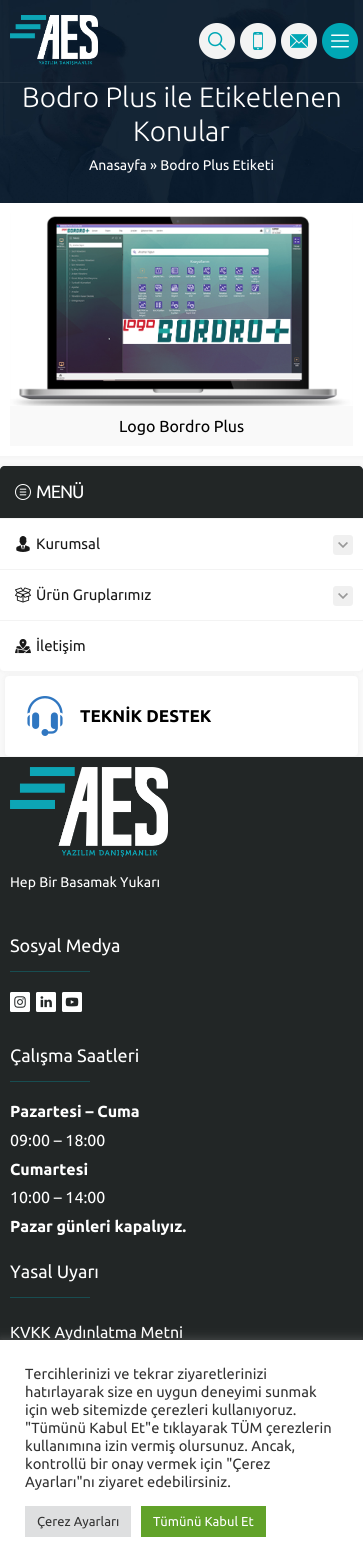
#include <cairo.h>
#include <math.h>
#include <stddef.h>

typedef struct { double x, y; const char *s; } line_t;

static void ink(cairo_t *ctx, unsigned color) {
    cairo_set_source_rgb(ctx, (color >> 16) / 255.0, (color >> 8 & 255) / 255.0, (color & 255) / 255.0);
}

static void write_spaced(cairo_t *ctx, double x, double y, const char *s, double letter, double word) {
    cairo_move_to(ctx, x, y);
    while (*s) {
        char ch[5] = {0};
        int n = 0;
        do ch[n++] = *s++; while ((*s & 0xC0) == 0x80);
        cairo_show_text(ctx, ch);
        cairo_rel_move_to(ctx, letter + word * (*ch == ' '), 0);
    }
}

static void round_path(cairo_t *ctx, double x, double y, double w, double h, double r) {
    cairo_new_sub_path(ctx);
    cairo_arc(ctx, x + w - r, y + h - r, r, 0, M_PI / 2);
    cairo_arc(ctx, x + r, y + h - r, r, M_PI / 2, M_PI);
    cairo_arc(ctx, x + r, y + r, r, M_PI, 1.5 * M_PI);
    cairo_arc(ctx, x + w - r, y + r, r, 1.5 * M_PI, 2 * M_PI);
    cairo_close_path(ctx);
}

static void blur_box(cairo_t *ctx, double x, double y, double w, double h, double r, double blur, double alpha) {
    cairo_push_group_with_content(ctx, CAIRO_CONTENT_ALPHA);
    cairo_set_operator(ctx, CAIRO_OPERATOR_SOURCE);
    for (int i = 15; i >= -15 && fmin(w, h) + blur * i / 3 > 0; i -= 2) {
        double e = blur * i / 6;
        cairo_set_source_rgba(ctx, 0, 0, 0, alpha * erfc((i - 1) / 8.5) / 2);
        round_path(ctx, x - e, y - e, w + 2 * e, h + 2 * e, fmax(0, fmin(r + e + blur * .6, fmin(w, h) / 2 + e)));
        cairo_fill(ctx);
    }
    cairo_pattern_t *soft = cairo_pop_group(ctx);
    cairo_mask(ctx, soft);
    cairo_pattern_destroy(soft);
}

static void paste(cairo_t *ctx, const char *path, double x, double y, double w, double h) {
    cairo_surface_t *image = cairo_image_surface_create_from_png(path);
    cairo_save(ctx);
    cairo_set_source_surface(ctx, image, x, y);
    cairo_rectangle(ctx, x, y, w, h);
    cairo_fill(ctx);
    cairo_restore(ctx);
    cairo_surface_destroy(image);
}

int main(void) {
    cairo_surface_t *surface = cairo_image_surface_create(CAIRO_FORMAT_RGB24, 363, 1567);
    cairo_t *ctx = cairo_create(surface);
    cairo_font_options_t *options = cairo_font_options_create();
    cairo_font_options_set_hint_metrics(options, CAIRO_HINT_METRICS_OFF);
    cairo_font_options_set_hint_style(options, CAIRO_HINT_STYLE_NONE);
    cairo_set_font_options(ctx, options);
    cairo_set_miter_limit(ctx, 4);
    ink(ctx, 0xF9F9F9);
    cairo_paint(ctx);
    paste(ctx, "media/6.png", 0, 0, 363, 203);
    paste(ctx, "media/1.png", 10, 15, 88, 50);
    ink(ctx, 0xF3F3F3);
    cairo_arc(ctx, 217, 41, 18, 0, 2 * M_PI);
    cairo_fill(ctx);
    paste(ctx, "media/2.png", 208, 32, 18, 18);
    cairo_arc(ctx, 258, 41, 18, 0, 2 * M_PI);
    cairo_fill(ctx);
    paste(ctx, "media/3.png", 253, 32, 10, 18);
    cairo_arc(ctx, 299, 41, 18, 0, 2 * M_PI);
    cairo_fill(ctx);
    paste(ctx, "media/4.png", 290, 34, 18, 14);
    ink(ctx, 0x00A7B5);
    cairo_arc(ctx, 340, 41, 18, 0, 2 * M_PI);
    cairo_fill(ctx);
    paste(ctx, "media/5.png", 331, 34, 18, 14);
    cairo_set_source_rgba(ctx, 1, 1, 1, 0.07);
    cairo_rectangle(ctx, 0, 82, 363, 1);
    cairo_fill(ctx);
    cairo_select_font_face(ctx, "Ubuntu Light", CAIRO_FONT_SLANT_NORMAL, CAIRO_FONT_WEIGHT_NORMAL);
    cairo_set_font_size(ctx, 28);
    ink(ctx, 0xFFFFFF);
    cairo_move_to(ctx, 22, 107);
    cairo_show_text(ctx, "Bodro Plus ile Etiketlenen");
    cairo_move_to(ctx, 133, 141);
    cairo_show_text(ctx, "Konular");
    cairo_select_font_face(ctx, "Ubuntu", CAIRO_FONT_SLANT_NORMAL, CAIRO_FONT_WEIGHT_NORMAL);
    cairo_set_font_size(ctx, 14);
    cairo_move_to(ctx, 89, 170);
    cairo_show_text(ctx, "Anasayfa » Bodro Plus Etiketi");
    ink(ctx, 0x000000);
    blur_box(ctx, 0, 203, 363, 253, 0, 2.5, 0.05);
    ink(ctx, 0xFFFFFF);
    cairo_rectangle(ctx, 0, 203, 363, 253);
    cairo_fill(ctx);
    ink(ctx, 0xF9F9F9);
    cairo_rectangle(ctx, 10, 213, 343, 233);
    cairo_fill(ctx);
    paste(ctx, "media/7.png", 10, 213, 343, 193);
    cairo_set_font_size(ctx, 16);
    ink(ctx, 0x000000);
    cairo_move_to(ctx, 119, 432);
    cairo_show_text(ctx, "Logo Bordro Plus");
    ink(ctx, 0x000000);
    blur_box(ctx, 0, 466, 363, 205, 4, 2.5, 0.05);
    ink(ctx, 0xFFFFFF);
    round_path(ctx, 0, 466, 363, 205, 4);
    cairo_fill(ctx);
    ink(ctx, 0x222626);
    cairo_new_path(ctx);
    cairo_move_to(ctx, 4, 466);
    cairo_line_to(ctx, 359, 466);
    cairo_curve_to(ctx, 361, 466, 363, 468, 363, 470);
    cairo_line_to(ctx, 363, 518);
    cairo_line_to(ctx, 0, 518);
    cairo_line_to(ctx, 0, 470);
    cairo_curve_to(ctx, 0, 468, 2, 466, 4, 466);
    cairo_close_path(ctx);
    cairo_fill(ctx);
    paste(ctx, "media/8.png", 15, 484, 16, 16);
    cairo_set_font_size(ctx, 18);
    ink(ctx, 0xFFFFFF);
    write_spaced(ctx, 36, 498, "MENÜ", -1, 0);
    ink(ctx, 0xF3F3F3);
    cairo_rectangle(ctx, 0, 518, 363, 1);
    cairo_fill(ctx);
    paste(ctx, "media/9.png", 16, 536, 14, 16);
    cairo_set_font_size(ctx, 15);
    ink(ctx, 0x181818);
    cairo_move_to(ctx, 36, 549);
    cairo_show_text(ctx, "Kurumsal");
    ink(ctx, 0xF0F0F0);
    round_path(ctx, 333, 535, 20, 20, 3);
    cairo_fill(ctx);
    paste(ctx, "media/10.png", 338, 542, 10, 6);
    ink(ctx, 0xF3F3F3);
    cairo_rectangle(ctx, 0, 569, 363, 1);
    cairo_fill(ctx);
    paste(ctx, "media/11.png", 15, 587, 16, 16);
    ink(ctx, 0x181818);
    cairo_move_to(ctx, 36, 600);
    cairo_show_text(ctx, "Ürün Gruplarımız");
    ink(ctx, 0xF0F0F0);
    round_path(ctx, 333, 586, 20, 20, 3);
    cairo_fill(ctx);
    paste(ctx, "media/10.png", 338, 593, 10, 6);
    ink(ctx, 0xF3F3F3);
    cairo_rectangle(ctx, 0, 620, 363, 1);
    cairo_fill(ctx);
    paste(ctx, "media/12.png", 15, 639, 16, 15);
    ink(ctx, 0x181818);
    cairo_move_to(ctx, 36, 651);
    cairo_show_text(ctx, "İletişim");
    ink(ctx, 0x000000);
    blur_box(ctx, 5, 676, 353, 80, 4, 2.5, 0.05);
    ink(ctx, 0xFFFFFF);
    round_path(ctx, 5, 676, 353, 80, 4);
    cairo_fill(ctx);
    paste(ctx, "media/13.png", 27, 696, 36, 40);
    cairo_select_font_face(ctx, "Ubuntu", CAIRO_FONT_SLANT_NORMAL, CAIRO_FONT_WEIGHT_BOLD);
    cairo_set_font_size(ctx, 17);
    ink(ctx, 0x000000);
    cairo_move_to(ctx, 80, 722);
    cairo_show_text(ctx, "TEKNİK DESTEK");
    ink(ctx, 0x222626);
    cairo_rectangle(ctx, 0, 757, 363, 583);
    cairo_fill(ctx);
    paste(ctx, "media/14.png", 10, 767, 158, 90);
    cairo_select_font_face(ctx, "Ubuntu", CAIRO_FONT_SLANT_NORMAL, CAIRO_FONT_WEIGHT_NORMAL);
    cairo_set_font_size(ctx, 14);
    ink(ctx, 0xFFFFFF);
    cairo_move_to(ctx, 10, 887);
    cairo_show_text(ctx, "Hep Bir Basamak Yukarı");
    cairo_set_font_size(ctx, 18);
    cairo_move_to(ctx, 10, 952);
    cairo_show_text(ctx, "Sosyal Medya");
    ink(ctx, 0x184D51);
    cairo_rectangle(ctx, 10, 971, 80, 1);
    cairo_fill(ctx);
    paste(ctx, "media/15.png", 10, 992, 20, 20);
    paste(ctx, "media/16.png", 36, 992, 20, 20);
    paste(ctx, "media/17.png", 62, 992, 20, 20);
    ink(ctx, 0xFFFFFF);
    cairo_move_to(ctx, 10, 1062);
    cairo_show_text(ctx, "Çalışma Saatleri");
    ink(ctx, 0x184D51);
    cairo_rectangle(ctx, 10, 1081, 80, 1);
    cairo_fill(ctx);
    cairo_select_font_face(ctx, "Ubuntu", CAIRO_FONT_SLANT_NORMAL, CAIRO_FONT_WEIGHT_BOLD);
    cairo_set_font_size(ctx, 16);
    ink(ctx, 0xFFFFFF);
    cairo_move_to(ctx, 10, 1117);
    cairo_show_text(ctx, "Pazartesi – Cuma");
    cairo_select_font_face(ctx, "Ubuntu", CAIRO_FONT_SLANT_NORMAL, CAIRO_FONT_WEIGHT_NORMAL);
    cairo_move_to(ctx, 10, 1146);
    cairo_show_text(ctx, "09:00 – 18:00");
    cairo_select_font_face(ctx, "Ubuntu", CAIRO_FONT_SLANT_NORMAL, CAIRO_FONT_WEIGHT_BOLD);
    cairo_move_to(ctx, 10, 1175);
    cairo_show_text(ctx, "Cumartesi");
    cairo_select_font_face(ctx, "Ubuntu", CAIRO_FONT_SLANT_NORMAL, CAIRO_FONT_WEIGHT_NORMAL);
    cairo_move_to(ctx, 10, 1203);
    cairo_show_text(ctx, "10:00 – 14:00");
    cairo_select_font_face(ctx, "Ubuntu", CAIRO_FONT_SLANT_NORMAL, CAIRO_FONT_WEIGHT_BOLD);
    cairo_move_to(ctx, 10, 1232);
    cairo_show_text(ctx, "Pazar günleri kapalıyız.");
    cairo_select_font_face(ctx, "Ubuntu", CAIRO_FONT_SLANT_NORMAL, CAIRO_FONT_WEIGHT_NORMAL);
    cairo_set_font_size(ctx, 18);
    cairo_move_to(ctx, 10, 1278);
    cairo_show_text(ctx, "Yasal Uyarı");
    ink(ctx, 0x184D51);
    cairo_rectangle(ctx, 10, 1297, 80, 1);
    cairo_fill(ctx);
    cairo_set_font_size(ctx, 16);
    ink(ctx, 0xFFFFFF);
    cairo_move_to(ctx, 10, 1338);
    cairo_show_text(ctx, "KVKK Aydınlatma Metni");
    ink(ctx, 0xACABAB);
    blur_box(ctx, 0, 1339, 363, 227, 0, 5, 0.3);
    ink(ctx, 0xFFFFFF);
    cairo_rectangle(ctx, 0, 1340, 363, 227);
    cairo_fill(ctx);
    cairo_set_font_size(ctx, 14.7);
    ink(ctx, 0x333333);
    {
        static const line_t items[] = {
            {25, 1379, "Tercihlerinizi ve tekrar ziyaretlerinizi"},
            {25, 1397, "hatırlayarak size en uygun deneyimi sunmak"},
            {25, 1415, "için web sitemizde çerezleri kullanıyoruz."},
            {25, 1433, "\"Tümünü Kabul Et\"e tıklayarak TÜM çerezlerin"},
            {25, 1451, "kullanımına izin vermiş olursunuz. Ancak,"},
            {25, 1469, "kontrollü bir onay vermek için \"Çerez"},
            {25, 1487, "Ayarları\"nı ziyaret edebilirsiniz."},
        };
        for (size_t i = 0; i < sizeof items / sizeof *items; i++) {
            cairo_move_to(ctx, items[i].x, items[i].y);
            cairo_show_text(ctx, items[i].s);
        }
    }
    ink(ctx, 0xDEDFE0);
    cairo_rectangle(ctx, 25, 1506, 106, 31);
    cairo_fill(ctx);
    cairo_set_font_size(ctx, 13);
    ink(ctx, 0x333333);
    cairo_move_to(ctx, 37, 1526);
    cairo_show_text(ctx, "Çerez Ayarları");
    ink(ctx, 0x61A229);
    cairo_rectangle(ctx, 141, 1506, 125, 31);
    cairo_fill(ctx);
    ink(ctx, 0xFFFFFF);
    cairo_move_to(ctx, 153, 1526);
    cairo_show_text(ctx, "Tümünü Kabul Et");
    cairo_surface_write_to_png(surface, "image.png");
    cairo_font_options_destroy(options);
    cairo_destroy(ctx);
    cairo_surface_destroy(surface);
    return 0;
}
